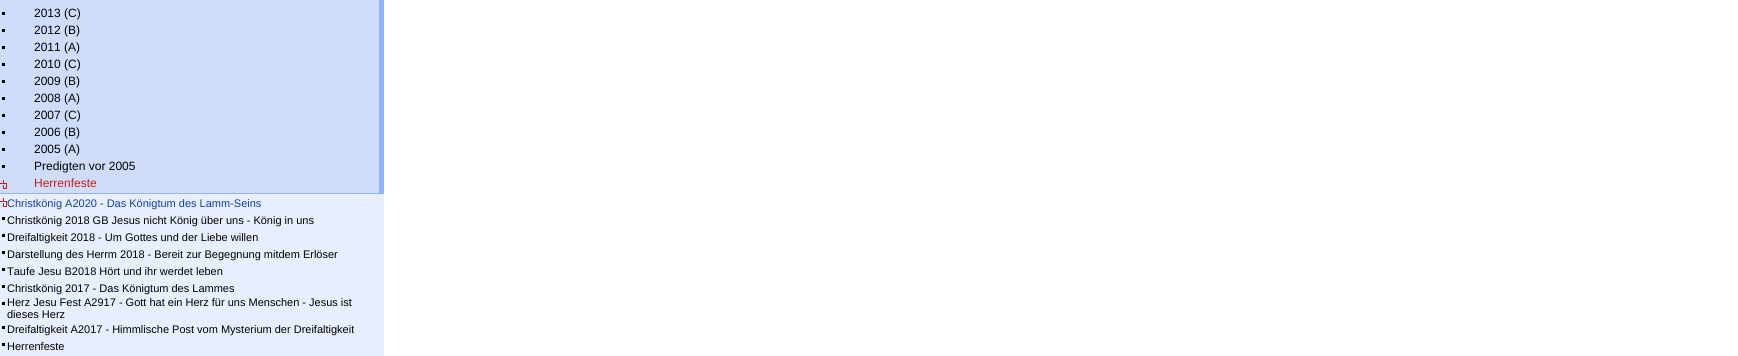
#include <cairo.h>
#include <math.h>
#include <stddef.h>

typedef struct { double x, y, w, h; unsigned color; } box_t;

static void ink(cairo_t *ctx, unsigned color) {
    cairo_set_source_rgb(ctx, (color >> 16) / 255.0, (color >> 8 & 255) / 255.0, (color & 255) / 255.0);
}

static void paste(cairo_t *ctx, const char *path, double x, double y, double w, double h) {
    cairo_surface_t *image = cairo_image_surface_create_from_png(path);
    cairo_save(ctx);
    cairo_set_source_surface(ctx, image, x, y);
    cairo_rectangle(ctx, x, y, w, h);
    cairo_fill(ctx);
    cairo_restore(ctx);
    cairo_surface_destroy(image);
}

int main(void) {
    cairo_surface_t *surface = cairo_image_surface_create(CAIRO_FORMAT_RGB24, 1738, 356);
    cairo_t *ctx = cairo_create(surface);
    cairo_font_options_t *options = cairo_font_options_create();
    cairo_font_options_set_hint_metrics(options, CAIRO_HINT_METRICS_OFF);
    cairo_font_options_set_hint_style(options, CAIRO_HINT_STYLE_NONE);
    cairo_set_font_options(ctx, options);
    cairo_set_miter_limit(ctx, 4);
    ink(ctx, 0xFFFFFF);
    cairo_paint(ctx);
    {
        static const box_t items[] = {
            {0, 0, 379, 6, 0xCFDDFB},
            {379, 0, 5, 193, 0x92B4FF},
            {0, 6, 379, 17, 0xCFDDFB},
            {2, 12, 3, 3, 0x000000},
        };
        for (size_t i = 0; i < sizeof items / sizeof *items; i++) {
            ink(ctx, items[i].color);
            cairo_rectangle(ctx, items[i].x, items[i].y, items[i].w, items[i].h);
            cairo_fill(ctx);
        }
    }
    cairo_select_font_face(ctx, "Liberation Sans", CAIRO_FONT_SLANT_NORMAL, CAIRO_FONT_WEIGHT_NORMAL);
    cairo_set_font_size(ctx, 12);
    cairo_move_to(ctx, 34, 17);
    cairo_show_text(ctx, "2013 (C)");
    ink(ctx, 0xCFDDFB);
    cairo_rectangle(ctx, 0, 23, 379, 17);
    cairo_fill(ctx);
    ink(ctx, 0x000000);
    cairo_rectangle(ctx, 2, 29, 3, 3);
    cairo_fill(ctx);
    cairo_move_to(ctx, 34, 34);
    cairo_show_text(ctx, "2012 (B)");
    ink(ctx, 0xCFDDFB);
    cairo_rectangle(ctx, 0, 40, 379, 17);
    cairo_fill(ctx);
    ink(ctx, 0x000000);
    cairo_rectangle(ctx, 2, 46, 3, 3);
    cairo_fill(ctx);
    cairo_move_to(ctx, 34, 51);
    cairo_show_text(ctx, "2011 (A)");
    ink(ctx, 0xCFDDFB);
    cairo_rectangle(ctx, 0, 57, 379, 17);
    cairo_fill(ctx);
    ink(ctx, 0x000000);
    cairo_rectangle(ctx, 2, 63, 3, 3);
    cairo_fill(ctx);
    cairo_move_to(ctx, 34, 68);
    cairo_show_text(ctx, "2010 (C)");
    ink(ctx, 0xCFDDFB);
    cairo_rectangle(ctx, 0, 74, 379, 17);
    cairo_fill(ctx);
    ink(ctx, 0x000000);
    cairo_rectangle(ctx, 2, 80, 3, 3);
    cairo_fill(ctx);
    cairo_move_to(ctx, 34, 85);
    cairo_show_text(ctx, "2009 (B)");
    ink(ctx, 0xCFDDFB);
    cairo_rectangle(ctx, 0, 91, 379, 17);
    cairo_fill(ctx);
    ink(ctx, 0x000000);
    cairo_rectangle(ctx, 2, 97, 3, 3);
    cairo_fill(ctx);
    cairo_move_to(ctx, 34, 102);
    cairo_show_text(ctx, "2008 (A)");
    ink(ctx, 0xCFDDFB);
    cairo_rectangle(ctx, 0, 108, 379, 17);
    cairo_fill(ctx);
    ink(ctx, 0x000000);
    cairo_rectangle(ctx, 2, 114, 3, 3);
    cairo_fill(ctx);
    cairo_move_to(ctx, 34, 119);
    cairo_show_text(ctx, "2007 (C)");
    ink(ctx, 0xCFDDFB);
    cairo_rectangle(ctx, 0, 125, 379, 17);
    cairo_fill(ctx);
    ink(ctx, 0x000000);
    cairo_rectangle(ctx, 2, 131, 3, 3);
    cairo_fill(ctx);
    cairo_move_to(ctx, 34, 136);
    cairo_show_text(ctx, "2006 (B)");
    ink(ctx, 0xCFDDFB);
    cairo_rectangle(ctx, 0, 142, 379, 17);
    cairo_fill(ctx);
    ink(ctx, 0x000000);
    cairo_rectangle(ctx, 2, 148, 3, 3);
    cairo_fill(ctx);
    cairo_move_to(ctx, 34, 153);
    cairo_show_text(ctx, "2005 (A)");
    ink(ctx, 0xCFDDFB);
    cairo_rectangle(ctx, 0, 159, 379, 17);
    cairo_fill(ctx);
    ink(ctx, 0x000000);
    cairo_rectangle(ctx, 2, 165, 3, 3);
    cairo_fill(ctx);
    cairo_move_to(ctx, 34, 170);
    cairo_show_text(ctx, "Predigten vor 2005");
    ink(ctx, 0xCFDDFB);
    cairo_rectangle(ctx, 0, 176, 379, 17);
    cairo_fill(ctx);
    paste(ctx, "media/1.png", 0, 180, 7, 9);
    ink(ctx, 0xCD1A17);
    cairo_move_to(ctx, 34, 187);
    cairo_show_text(ctx, "Herrenfeste");
    ink(ctx, 0x92B4FF);
    cairo_rectangle(ctx, 0, 193, 384, 1);
    cairo_fill(ctx);
    ink(ctx, 0xE7EEFD);
    cairo_rectangle(ctx, 0, 194, 384, 17);
    cairo_fill(ctx);
    paste(ctx, "media/2.png", 0, 198, 7, 9);
    cairo_set_font_size(ctx, 11);
    ink(ctx, 0x103FA6);
    cairo_move_to(ctx, 7, 207);
    cairo_show_text(ctx, "Christkönig A2020 - Das Königtum des Lamm-Seins");
    ink(ctx, 0xE7EEFD);
    cairo_rectangle(ctx, 0, 211, 384, 17);
    cairo_fill(ctx);
    ink(ctx, 0x000000);
    cairo_rectangle(ctx, 2, 217, 3, 3);
    cairo_fill(ctx);
    cairo_move_to(ctx, 7, 224);
    cairo_show_text(ctx, "Christkönig 2018 GB Jesus nicht König über uns - König in uns");
    ink(ctx, 0xE7EEFD);
    cairo_rectangle(ctx, 0, 228, 384, 17);
    cairo_fill(ctx);
    ink(ctx, 0x000000);
    cairo_rectangle(ctx, 2, 234, 3, 3);
    cairo_fill(ctx);
    cairo_move_to(ctx, 7, 241);
    cairo_show_text(ctx, "Dreifaltigkeit 2018 - Um Gottes und der Liebe willen");
    ink(ctx, 0xE7EEFD);
    cairo_rectangle(ctx, 0, 245, 384, 17);
    cairo_fill(ctx);
    ink(ctx, 0x000000);
    cairo_rectangle(ctx, 2, 251, 3, 3);
    cairo_fill(ctx);
    cairo_move_to(ctx, 7, 258);
    cairo_show_text(ctx, "Darstellung des Herrm 2018 - Bereit zur Begegnung mitdem Erlöser");
    ink(ctx, 0xE7EEFD);
    cairo_rectangle(ctx, 0, 262, 384, 17);
    cairo_fill(ctx);
    ink(ctx, 0x000000);
    cairo_rectangle(ctx, 2, 268, 3, 3);
    cairo_fill(ctx);
    cairo_move_to(ctx, 7, 275);
    cairo_show_text(ctx, "Taufe Jesu B2018 Hört und ihr werdet leben");
    ink(ctx, 0xE7EEFD);
    cairo_rectangle(ctx, 0, 279, 384, 17);
    cairo_fill(ctx);
    ink(ctx, 0x000000);
    cairo_rectangle(ctx, 2, 285, 3, 3);
    cairo_fill(ctx);
    cairo_move_to(ctx, 7, 292);
    cairo_show_text(ctx, "Christkönig 2017 - Das Königtum des Lammes");
    ink(ctx, 0xE7EEFD);
    cairo_rectangle(ctx, 0, 296, 384, 24);
    cairo_fill(ctx);
    ink(ctx, 0x000000);
    cairo_rectangle(ctx, 2, 302, 3, 3);
    cairo_fill(ctx);
    cairo_move_to(ctx, 7, 306);
    cairo_show_text(ctx, "Herz Jesu Fest A2917 - Gott hat ein Herz für uns Menschen - Jesus ist");
    cairo_move_to(ctx, 7, 318);
    cairo_show_text(ctx, "dieses Herz");
    ink(ctx, 0xE7EEFD);
    cairo_rectangle(ctx, 0, 320, 384, 17);
    cairo_fill(ctx);
    ink(ctx, 0x000000);
    cairo_rectangle(ctx, 2, 326, 3, 3);
    cairo_fill(ctx);
    cairo_move_to(ctx, 7, 333);
    cairo_show_text(ctx, "Dreifaltigkeit A2017 - Himmlische Post vom Mysterium der Dreifaltigkeit");
    ink(ctx, 0xE7EEFD);
    cairo_rectangle(ctx, 0, 337, 384, 17);
    cairo_fill(ctx);
    ink(ctx, 0x000000);
    cairo_rectangle(ctx, 2, 343, 3, 3);
    cairo_fill(ctx);
    cairo_move_to(ctx, 7, 350);
    cairo_show_text(ctx, "Herrenfeste");
    ink(ctx, 0xE7EEFD);
    cairo_rectangle(ctx, 0, 354, 384, 2);
    cairo_fill(ctx);
    cairo_surface_write_to_png(surface, "image.png");
    cairo_font_options_destroy(options);
    cairo_destroy(ctx);
    cairo_surface_destroy(surface);
    return 0;
}
